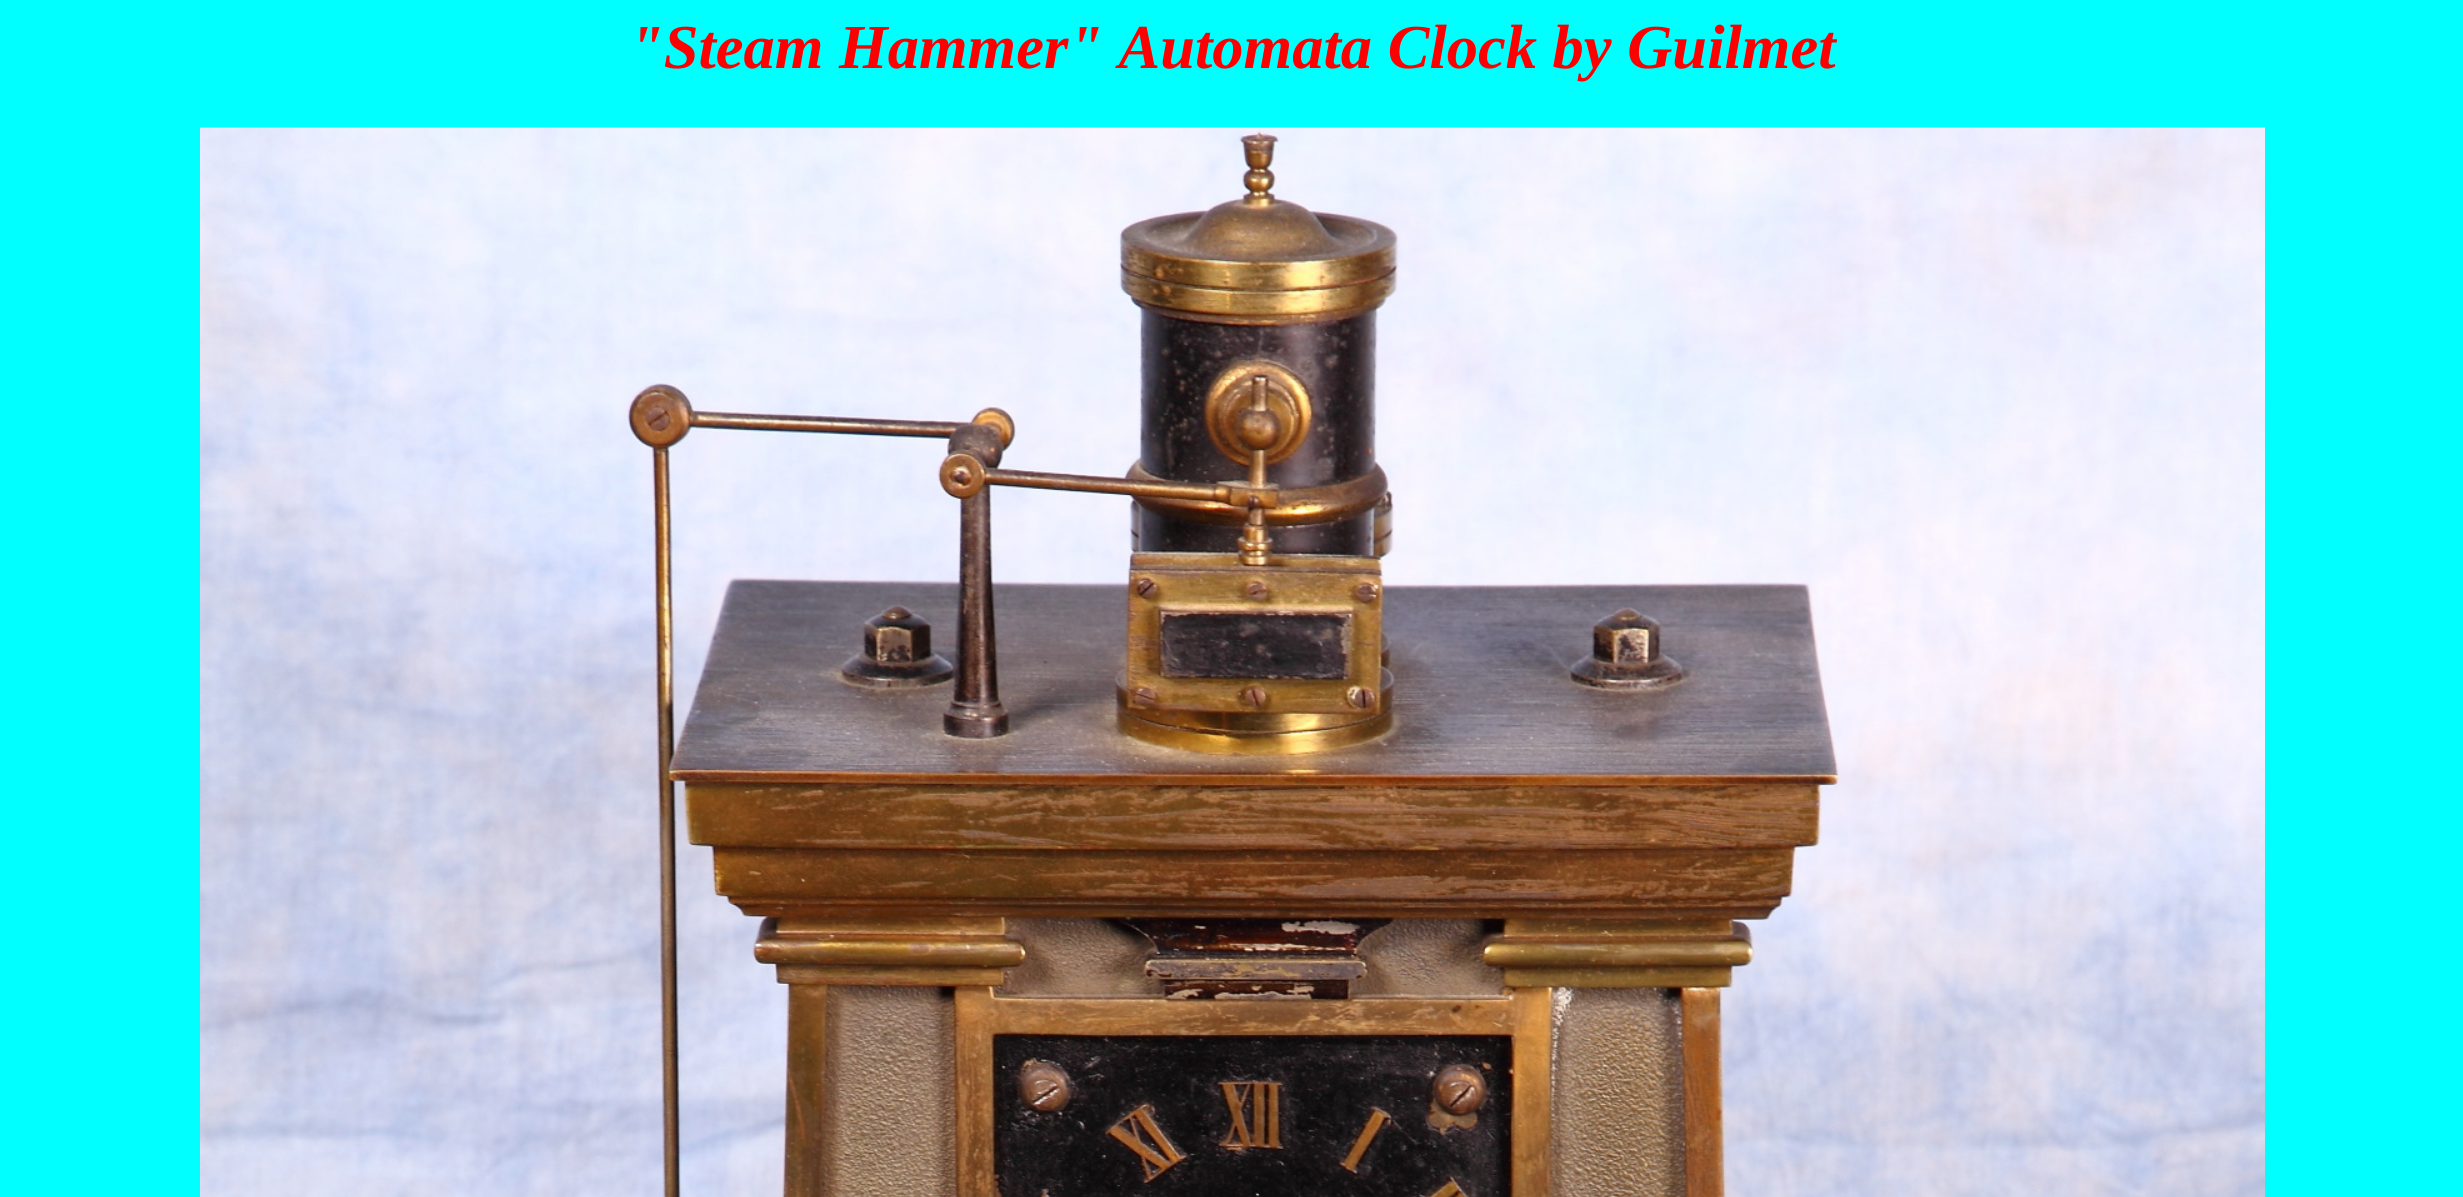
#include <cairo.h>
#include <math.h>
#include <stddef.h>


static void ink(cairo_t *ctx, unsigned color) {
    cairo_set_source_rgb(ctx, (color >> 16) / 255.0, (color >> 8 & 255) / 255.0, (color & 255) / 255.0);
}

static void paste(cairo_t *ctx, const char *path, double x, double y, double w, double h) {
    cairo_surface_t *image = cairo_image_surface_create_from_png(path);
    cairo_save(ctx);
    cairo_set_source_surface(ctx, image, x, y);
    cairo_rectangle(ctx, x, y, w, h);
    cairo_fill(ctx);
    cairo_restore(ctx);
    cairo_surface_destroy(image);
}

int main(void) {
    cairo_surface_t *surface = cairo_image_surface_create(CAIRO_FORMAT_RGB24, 2463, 1197);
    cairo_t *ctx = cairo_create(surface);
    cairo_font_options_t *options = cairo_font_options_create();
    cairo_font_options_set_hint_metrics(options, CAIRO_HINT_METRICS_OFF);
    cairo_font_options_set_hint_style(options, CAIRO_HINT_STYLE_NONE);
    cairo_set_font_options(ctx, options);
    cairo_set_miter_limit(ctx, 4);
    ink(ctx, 0x00FFFF);
    cairo_paint(ctx);
    cairo_select_font_face(ctx, "Liberation Serif", CAIRO_FONT_SLANT_ITALIC, CAIRO_FONT_WEIGHT_BOLD);
    cairo_set_font_size(ctx, 62.5);
    ink(ctx, 0xFF0000);
    cairo_move_to(ctx, 629, 68);
    cairo_show_text(ctx, "\"Steam Hammer\" Automata Clock by Guilmet");
    paste(ctx, "media/1.png", 200, 127, 2065, 1070);
    cairo_surface_write_to_png(surface, "image.png");
    cairo_font_options_destroy(options);
    cairo_destroy(ctx);
    cairo_surface_destroy(surface);
    return 0;
}
